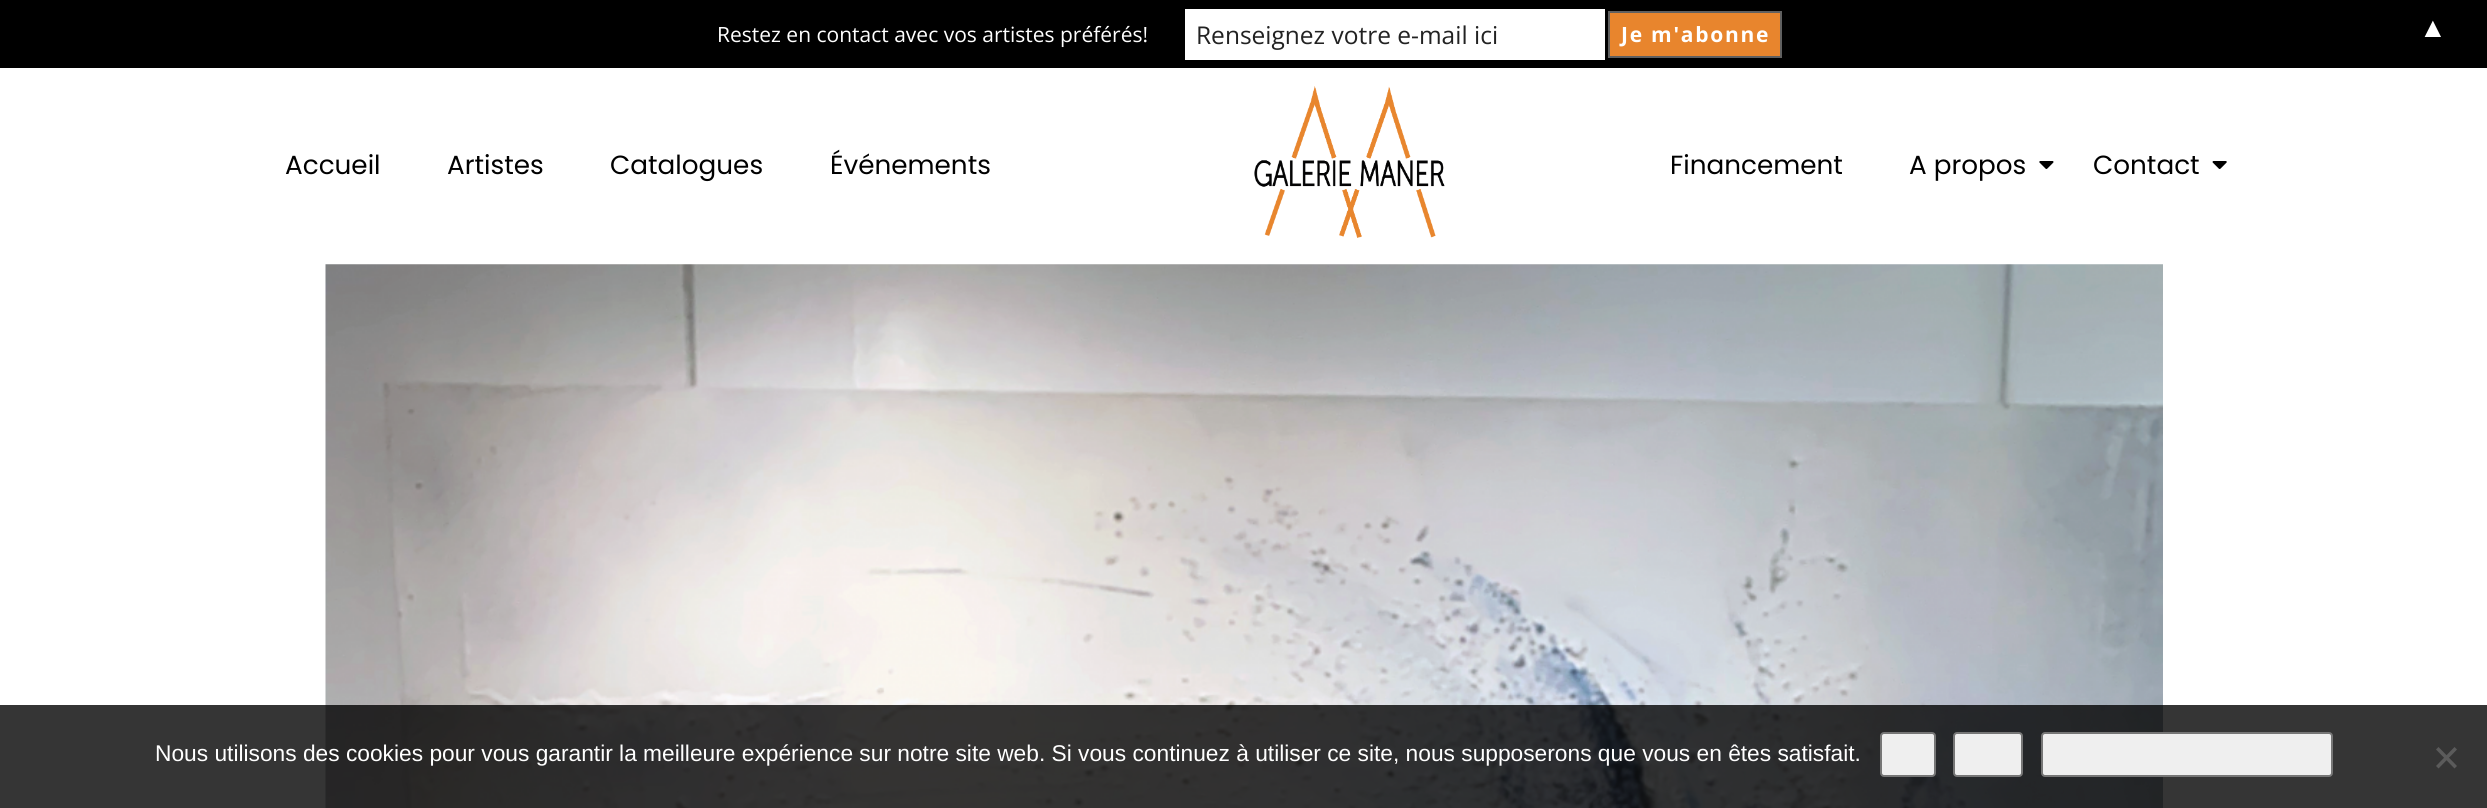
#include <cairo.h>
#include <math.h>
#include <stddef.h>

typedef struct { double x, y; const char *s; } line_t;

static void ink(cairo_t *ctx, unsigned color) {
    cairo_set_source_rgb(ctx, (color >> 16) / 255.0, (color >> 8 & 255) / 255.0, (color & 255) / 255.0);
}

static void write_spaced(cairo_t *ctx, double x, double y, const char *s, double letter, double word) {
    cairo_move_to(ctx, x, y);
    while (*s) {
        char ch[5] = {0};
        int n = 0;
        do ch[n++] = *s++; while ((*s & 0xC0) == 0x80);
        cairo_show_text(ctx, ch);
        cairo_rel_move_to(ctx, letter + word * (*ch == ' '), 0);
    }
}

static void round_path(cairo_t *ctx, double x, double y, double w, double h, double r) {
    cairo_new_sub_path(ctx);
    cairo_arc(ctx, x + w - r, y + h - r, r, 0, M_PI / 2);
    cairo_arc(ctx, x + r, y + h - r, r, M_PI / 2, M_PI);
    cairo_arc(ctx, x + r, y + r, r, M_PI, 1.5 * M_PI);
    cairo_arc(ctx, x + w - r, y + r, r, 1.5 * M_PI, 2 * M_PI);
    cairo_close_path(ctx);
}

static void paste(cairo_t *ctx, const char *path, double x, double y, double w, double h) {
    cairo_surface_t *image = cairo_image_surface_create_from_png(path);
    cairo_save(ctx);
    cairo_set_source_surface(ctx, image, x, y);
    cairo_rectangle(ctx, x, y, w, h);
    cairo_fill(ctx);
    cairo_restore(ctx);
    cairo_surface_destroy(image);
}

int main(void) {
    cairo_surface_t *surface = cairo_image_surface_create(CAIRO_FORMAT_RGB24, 2487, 808);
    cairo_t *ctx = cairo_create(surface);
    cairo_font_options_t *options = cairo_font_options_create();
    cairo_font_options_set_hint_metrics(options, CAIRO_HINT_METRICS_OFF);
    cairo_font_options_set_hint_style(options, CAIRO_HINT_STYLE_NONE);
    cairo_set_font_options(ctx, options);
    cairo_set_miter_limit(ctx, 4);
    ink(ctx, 0xFFFFFF);
    cairo_paint(ctx);
    ink(ctx, 0x000000);
    cairo_rectangle(ctx, 0, 0, 2487, 68);
    cairo_fill(ctx);
    cairo_select_font_face(ctx, "Open Sans", CAIRO_FONT_SLANT_NORMAL, CAIRO_FONT_WEIGHT_NORMAL);
    cairo_set_font_size(ctx, 21);
    ink(ctx, 0xFFFFFF);
    cairo_move_to(ctx, 717, 42);
    cairo_show_text(ctx, "Restez en contact avec vos artistes préférés!");
    cairo_rectangle(ctx, 1185, 9, 420, 51);
    cairo_fill(ctx);
    cairo_set_font_size(ctx, 24.5);
    ink(ctx, 0x222222);
    cairo_move_to(ctx, 1196, 44);
    cairo_show_text(ctx, "Renseignez votre e-mail ici");
    ink(ctx, 0xE8852D);
    cairo_rectangle(ctx, 1609, 12, 172, 45);
    cairo_fill_preserve(ctx);
    ink(ctx, 0x606060);
    cairo_stroke(ctx);
    cairo_select_font_face(ctx, "Open Sans", CAIRO_FONT_SLANT_NORMAL, CAIRO_FONT_WEIGHT_BOLD);
    cairo_set_font_size(ctx, 21);
    ink(ctx, 0xFFFFFF);
    write_spaced(ctx, 1621, 42, "Je m'abonne", 1.75, 0);
    cairo_select_font_face(ctx, "Liberation Serif", CAIRO_FONT_SLANT_NORMAL, CAIRO_FONT_WEIGHT_NORMAL);
    cairo_set_font_size(ctx, 28);
    cairo_move_to(ctx, 2419, 37);
    cairo_show_text(ctx, "▲");
    cairo_select_font_face(ctx, "Poppins", CAIRO_FONT_SLANT_NORMAL, CAIRO_FONT_WEIGHT_NORMAL);
    cairo_set_font_size(ctx, 26.25);
    ink(ctx, 0x000000);
    {
        static const line_t items[] = {
            {285, 174, "Accueil"},
            {447, 174, "Artistes"},
            {610, 174, "Catalogues"},
            {830, 174, "Événements"},
        };
        for (size_t i = 0; i < sizeof items / sizeof *items; i++) {
            cairo_move_to(ctx, items[i].x, items[i].y);
            cairo_show_text(ctx, items[i].s);
        }
    }
    paste(ctx, "media/1.png", 1254, 86, 191, 152);
    cairo_move_to(ctx, 1670, 174);
    cairo_show_text(ctx, "Financement");
    cairo_move_to(ctx, 1909, 174);
    cairo_show_text(ctx, "A propos");
    paste(ctx, "media/2.png", 2039, 161, 15, 8);
    cairo_move_to(ctx, 2093, 174);
    cairo_show_text(ctx, "Contact");
    paste(ctx, "media/3.png", 2212, 161, 15, 8);
    paste(ctx, "media/4.png", 325, 264, 1838, 544);
    cairo_set_source_rgba(ctx, 0, 0, 0, 0.79);
    cairo_rectangle(ctx, 0, 705, 2487, 103);
    cairo_fill(ctx);
    cairo_select_font_face(ctx, "Liberation Sans", CAIRO_FONT_SLANT_NORMAL, CAIRO_FONT_WEIGHT_NORMAL);
    cairo_set_font_size(ctx, 22.75);
    ink(ctx, 0xFFFFFF);
    cairo_move_to(ctx, 155, 761);
    cairo_show_text(ctx, "Nous utilisons des cookies pour vous garantir la meilleure expérience sur notre site web. Si vous continuez à utiliser ce site, nous supposerons que vous en êtes satisfait.");
    ink(ctx, 0xEFEFEF);
    round_path(ctx, 1881, 733, 54, 43, 3);
    cairo_fill_preserve(ctx);
    ink(ctx, 0x767676);
    cairo_stroke(ctx);
    ink(ctx, 0xEFEFEF);
    round_path(ctx, 1954, 733, 68, 43, 3);
    cairo_fill_preserve(ctx);
    ink(ctx, 0x767676);
    cairo_stroke(ctx);
    ink(ctx, 0xEFEFEF);
    round_path(ctx, 2042, 733, 290, 43, 3);
    cairo_fill_preserve(ctx);
    ink(ctx, 0x767676);
    cairo_stroke(ctx);
    ink(ctx, 0x5B5B5B);
    cairo_new_path(ctx);
    cairo_move_to(ctx, 2454.5, 747);
    cairo_line_to(ctx, 2457, 749.5);
    cairo_line_to(ctx, 2438.5, 768.5);
    cairo_line_to(ctx, 2436, 766);
    cairo_close_path(ctx);
    cairo_fill(ctx);
    cairo_new_path(ctx);
    cairo_move_to(ctx, 2436, 749.5);
    cairo_line_to(ctx, 2438.5, 747);
    cairo_line_to(ctx, 2457, 766);
    cairo_line_to(ctx, 2454.5, 768.5);
    cairo_close_path(ctx);
    cairo_fill(ctx);
    cairo_surface_write_to_png(surface, "image.png");
    cairo_font_options_destroy(options);
    cairo_destroy(ctx);
    cairo_surface_destroy(surface);
    return 0;
}
